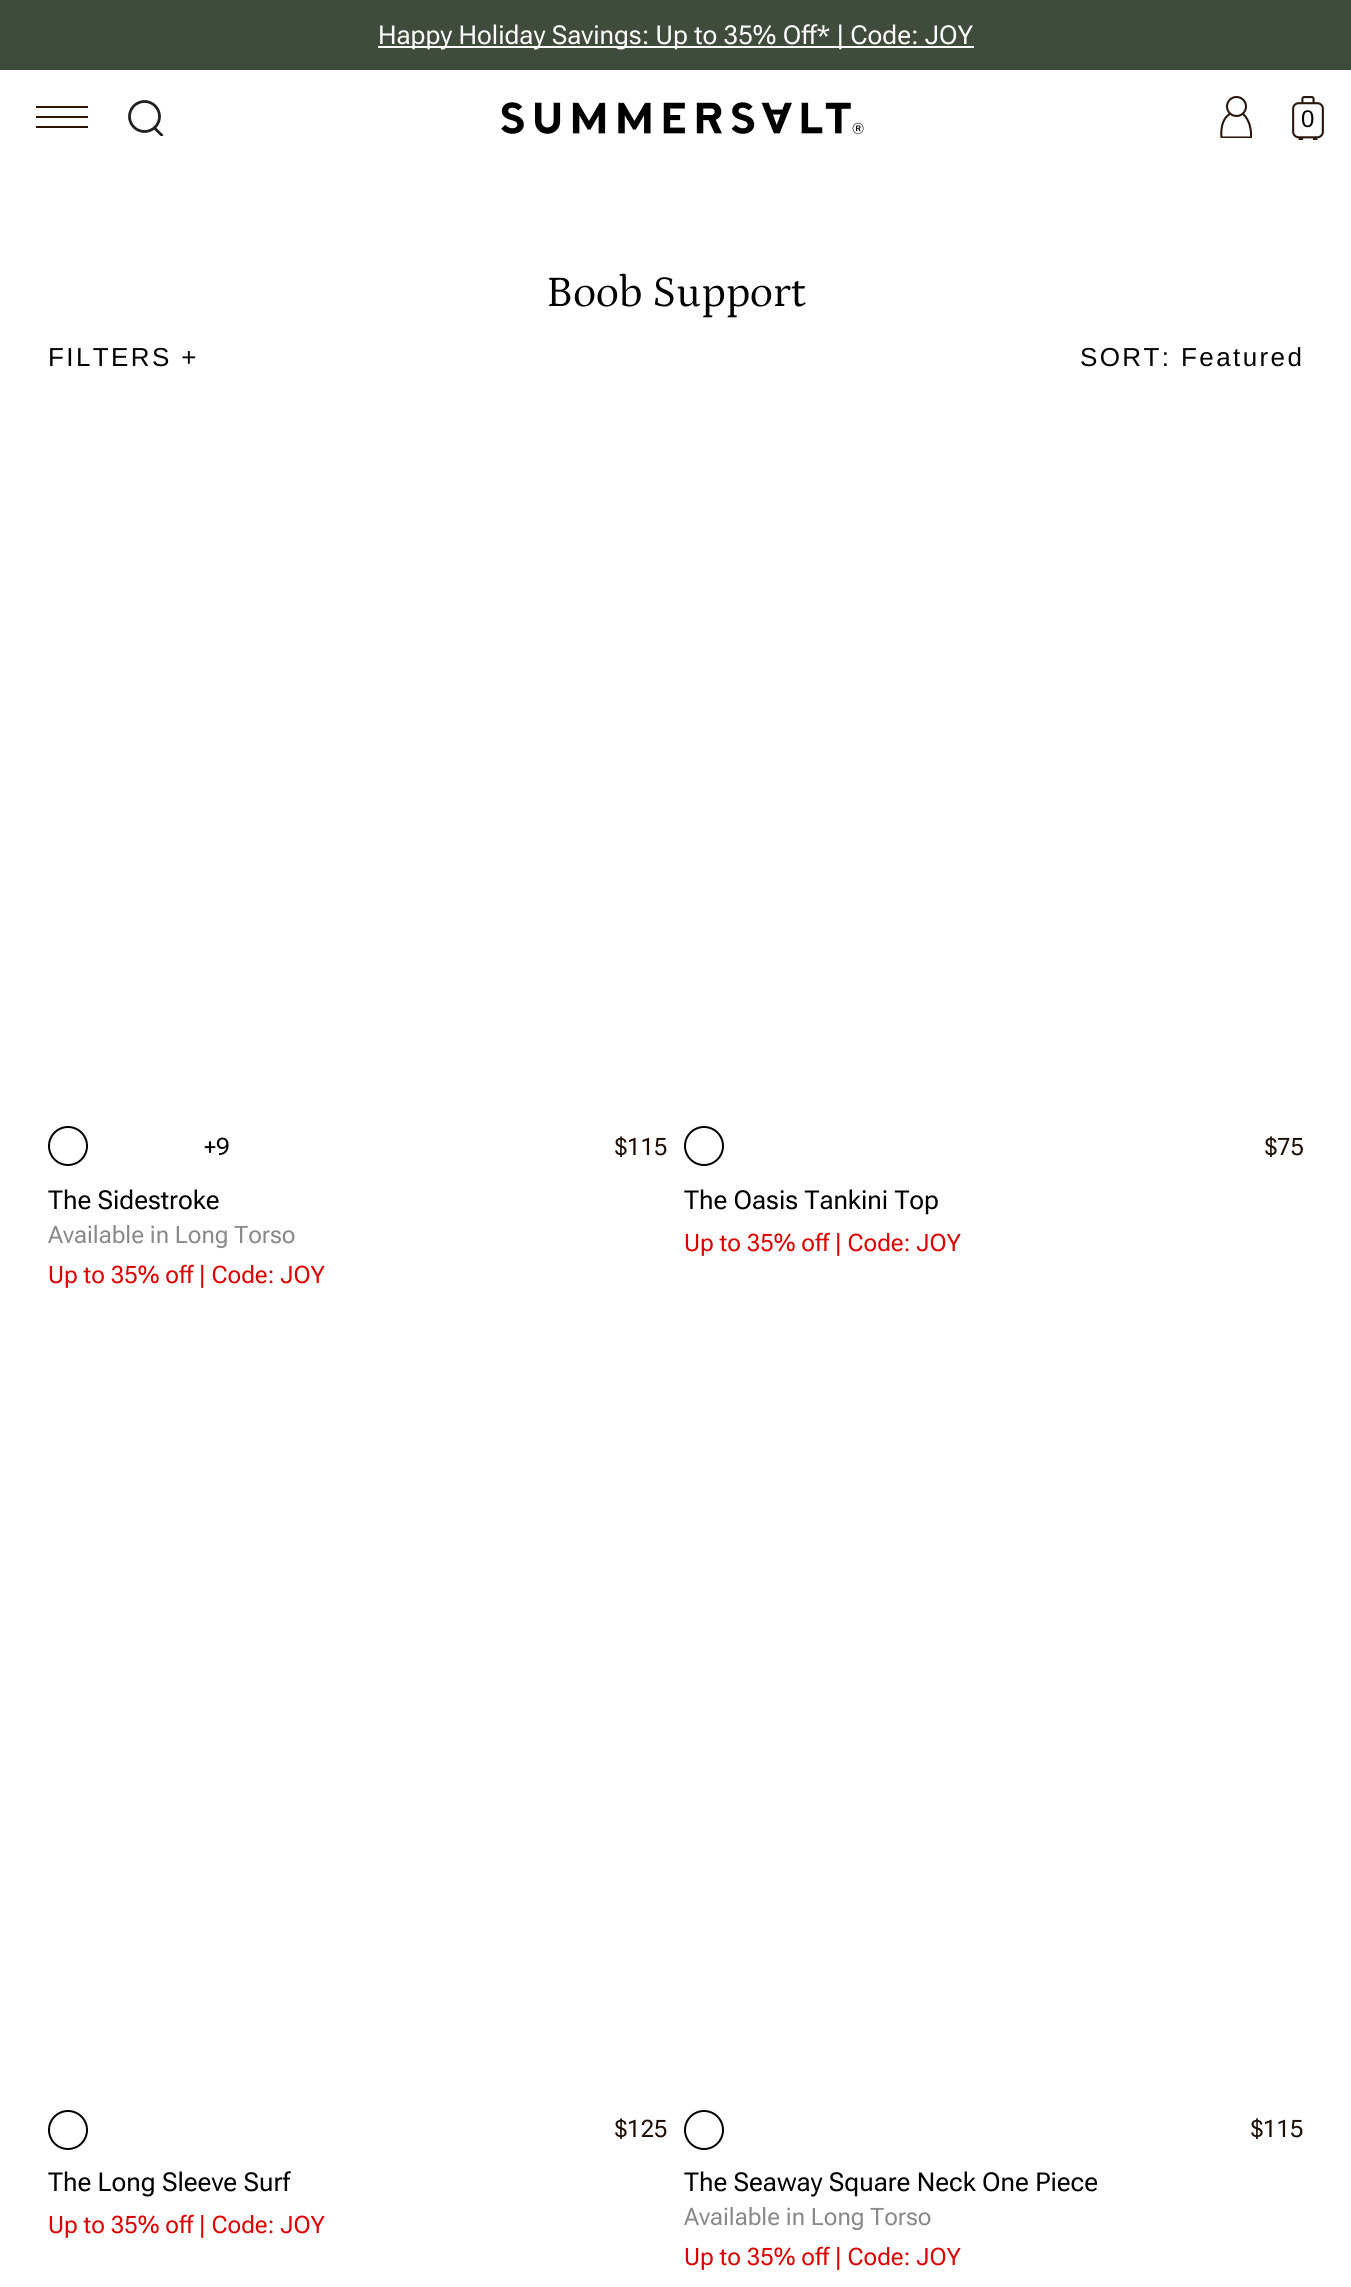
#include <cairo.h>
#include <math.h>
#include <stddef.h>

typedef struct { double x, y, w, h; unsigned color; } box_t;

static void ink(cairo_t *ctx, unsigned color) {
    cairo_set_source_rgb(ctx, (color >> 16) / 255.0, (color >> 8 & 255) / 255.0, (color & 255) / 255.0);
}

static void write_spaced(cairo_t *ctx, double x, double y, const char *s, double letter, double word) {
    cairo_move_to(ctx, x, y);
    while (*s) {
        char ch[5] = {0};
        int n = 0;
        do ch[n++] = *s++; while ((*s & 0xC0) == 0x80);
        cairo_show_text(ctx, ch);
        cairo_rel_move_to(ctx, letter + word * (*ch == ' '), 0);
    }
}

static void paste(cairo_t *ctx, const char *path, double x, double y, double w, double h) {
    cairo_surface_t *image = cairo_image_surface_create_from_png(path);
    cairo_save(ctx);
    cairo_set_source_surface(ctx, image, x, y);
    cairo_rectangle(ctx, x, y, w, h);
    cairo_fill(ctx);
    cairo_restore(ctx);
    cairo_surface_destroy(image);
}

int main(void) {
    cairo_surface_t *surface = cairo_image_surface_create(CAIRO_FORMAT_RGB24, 1351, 2287);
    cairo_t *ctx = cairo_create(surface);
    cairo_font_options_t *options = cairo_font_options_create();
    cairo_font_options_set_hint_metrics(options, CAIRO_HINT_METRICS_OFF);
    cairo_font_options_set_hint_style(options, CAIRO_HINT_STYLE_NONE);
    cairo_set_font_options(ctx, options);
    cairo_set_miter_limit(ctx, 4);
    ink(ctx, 0xFFFFFF);
    cairo_paint(ctx);
    ink(ctx, 0x404C3B);
    cairo_rectangle(ctx, 0, 0, 1351, 70);
    cairo_fill(ctx);
    ink(ctx, 0xFFFFFF);
    cairo_rectangle(ctx, 378, 46, 596, 2);
    cairo_fill(ctx);
    cairo_select_font_face(ctx, "Roboto Flex", CAIRO_FONT_SLANT_NORMAL, CAIRO_FONT_WEIGHT_NORMAL);
    cairo_set_font_size(ctx, 26);
    cairo_move_to(ctx, 378, 44);
    cairo_show_text(ctx, "Happy Holiday Savings: Up to 35% Off* | Code: JOY");
    {
        static const box_t items[] = {
            {36, 106, 52, 2, 0x2C1504},
            {36, 116, 52, 2, 0x2C1504},
            {36, 126, 52, 2, 0x2C1504},
        };
        for (size_t i = 0; i < sizeof items / sizeof *items; i++) {
            ink(ctx, items[i].color);
            cairo_rectangle(ctx, items[i].x, items[i].y, items[i].w, items[i].h);
            cairo_fill(ctx);
        }
    }
    cairo_new_path(ctx);
    cairo_arc(ctx, 144.5, 116.5, 15, 0, 2 * M_PI);
    ink(ctx, 0x231F20);
    cairo_set_line_width(ctx, 2.8);
    cairo_stroke(ctx);
    cairo_save(ctx);
    cairo_rectangle(ctx, 128, 100, 36, 36);
    cairo_clip(ctx);
    cairo_new_path(ctx);
    cairo_move_to(ctx, 154, 127.5);
    cairo_line_to(ctx, 162.5, 136);
    cairo_stroke(ctx);
    cairo_restore(ctx);
    paste(ctx, "media/1.png", 501, 102, 363, 32);
    cairo_arc(ctx, 1236.5, 106.5, 9.5, 0, 2 * M_PI);
    ink(ctx, 0x2B180D);
    cairo_set_line_width(ctx, 2.1);
    cairo_stroke(ctx);
    cairo_save(ctx);
    cairo_rectangle(ctx, 1220, 96, 32, 42);
    cairo_clip(ctx);
    cairo_new_path(ctx);
    cairo_move_to(ctx, 1242.5, 113.5);
    cairo_curve_to(ctx, 1252.5, 122, 1251, 137.5, 1251, 137.5);
    cairo_line_to(ctx, 1221.5, 137.5);
    cairo_curve_to(ctx, 1221.5, 137.5, 1219, 120, 1230.5, 113.5);
    cairo_stroke(ctx);
    cairo_restore(ctx);
    paste(ctx, "media/2.png", 1292, 96, 32, 44);
    cairo_select_font_face(ctx, "Liberation Sans", CAIRO_FONT_SLANT_NORMAL, CAIRO_FONT_WEIGHT_NORMAL);
    cairo_set_font_size(ctx, 24);
    ink(ctx, 0x000000);
    cairo_move_to(ctx, 1301, 127);
    cairo_show_text(ctx, "0");
    cairo_select_font_face(ctx, "Petrona", CAIRO_FONT_SLANT_NORMAL, CAIRO_FONT_WEIGHT_NORMAL);
    cairo_set_font_size(ctx, 44);
    cairo_move_to(ctx, 546, 306);
    cairo_show_text(ctx, "Boob Support");
    cairo_select_font_face(ctx, "Liberation Sans", CAIRO_FONT_SLANT_NORMAL, CAIRO_FONT_WEIGHT_NORMAL);
    cairo_set_font_size(ctx, 26);
    write_spaced(ctx, 48, 366, "FILTERS +", 2.4, 0);
    write_spaced(ctx, 1080, 366, "SORT: Featured", 2.4, 0);
    cairo_new_path(ctx);
    cairo_arc(ctx, 68, 1146, 19, 0, 2 * M_PI);
    cairo_set_line_width(ctx, 2);
    cairo_stroke(ctx);
    cairo_select_font_face(ctx, "Roboto Flex", CAIRO_FONT_SLANT_NORMAL, CAIRO_FONT_WEIGHT_NORMAL);
    cairo_set_font_size(ctx, 24);
    cairo_move_to(ctx, 204, 1155);
    cairo_show_text(ctx, "+9");
    ink(ctx, 0x1D0D02);
    cairo_move_to(ctx, 615, 1155);
    cairo_show_text(ctx, "$115");
    cairo_set_font_size(ctx, 26);
    ink(ctx, 0x000000);
    cairo_move_to(ctx, 48, 1209);
    cairo_show_text(ctx, "The Sidestroke");
    cairo_set_font_size(ctx, 24);
    ink(ctx, 0x898989);
    cairo_move_to(ctx, 48, 1243);
    cairo_show_text(ctx, "Available in Long Torso");
    ink(ctx, 0xDB0000);
    cairo_move_to(ctx, 48, 1283);
    cairo_show_text(ctx, "Up to 35% off | Code: JOY");
    cairo_new_path(ctx);
    cairo_arc(ctx, 704, 1146, 19, 0, 2 * M_PI);
    ink(ctx, 0x000000);
    cairo_stroke(ctx);
    ink(ctx, 0x1D0D02);
    cairo_move_to(ctx, 1265, 1155);
    cairo_show_text(ctx, "$75");
    cairo_set_font_size(ctx, 26);
    ink(ctx, 0x000000);
    cairo_move_to(ctx, 684, 1209);
    cairo_show_text(ctx, "The Oasis Tankini Top");
    cairo_set_font_size(ctx, 24);
    ink(ctx, 0xDB0000);
    cairo_move_to(ctx, 684, 1251);
    cairo_show_text(ctx, "Up to 35% off | Code: JOY");
    cairo_new_path(ctx);
    cairo_arc(ctx, 68, 2130, 19, 0, 2 * M_PI);
    ink(ctx, 0x000000);
    cairo_stroke(ctx);
    ink(ctx, 0x1D0D02);
    cairo_move_to(ctx, 615, 2137);
    cairo_show_text(ctx, "$125");
    cairo_set_font_size(ctx, 26);
    ink(ctx, 0x000000);
    cairo_move_to(ctx, 48, 2191);
    cairo_show_text(ctx, "The Long Sleeve Surf");
    cairo_set_font_size(ctx, 24);
    ink(ctx, 0xDB0000);
    cairo_move_to(ctx, 48, 2233);
    cairo_show_text(ctx, "Up to 35% off | Code: JOY");
    cairo_new_path(ctx);
    cairo_arc(ctx, 704, 2130, 19, 0, 2 * M_PI);
    ink(ctx, 0x000000);
    cairo_stroke(ctx);
    ink(ctx, 0x1D0D02);
    cairo_move_to(ctx, 1251, 2137);
    cairo_show_text(ctx, "$115");
    cairo_set_font_size(ctx, 26);
    ink(ctx, 0x000000);
    cairo_move_to(ctx, 684, 2191);
    cairo_show_text(ctx, "The Seaway Square Neck One Piece");
    cairo_set_font_size(ctx, 24);
    ink(ctx, 0x898989);
    cairo_move_to(ctx, 684, 2225);
    cairo_show_text(ctx, "Available in Long Torso");
    ink(ctx, 0xDB0000);
    cairo_move_to(ctx, 684, 2265);
    cairo_show_text(ctx, "Up to 35% off | Code: JOY");
    cairo_surface_write_to_png(surface, "image.png");
    cairo_font_options_destroy(options);
    cairo_destroy(ctx);
    cairo_surface_destroy(surface);
    return 0;
}
